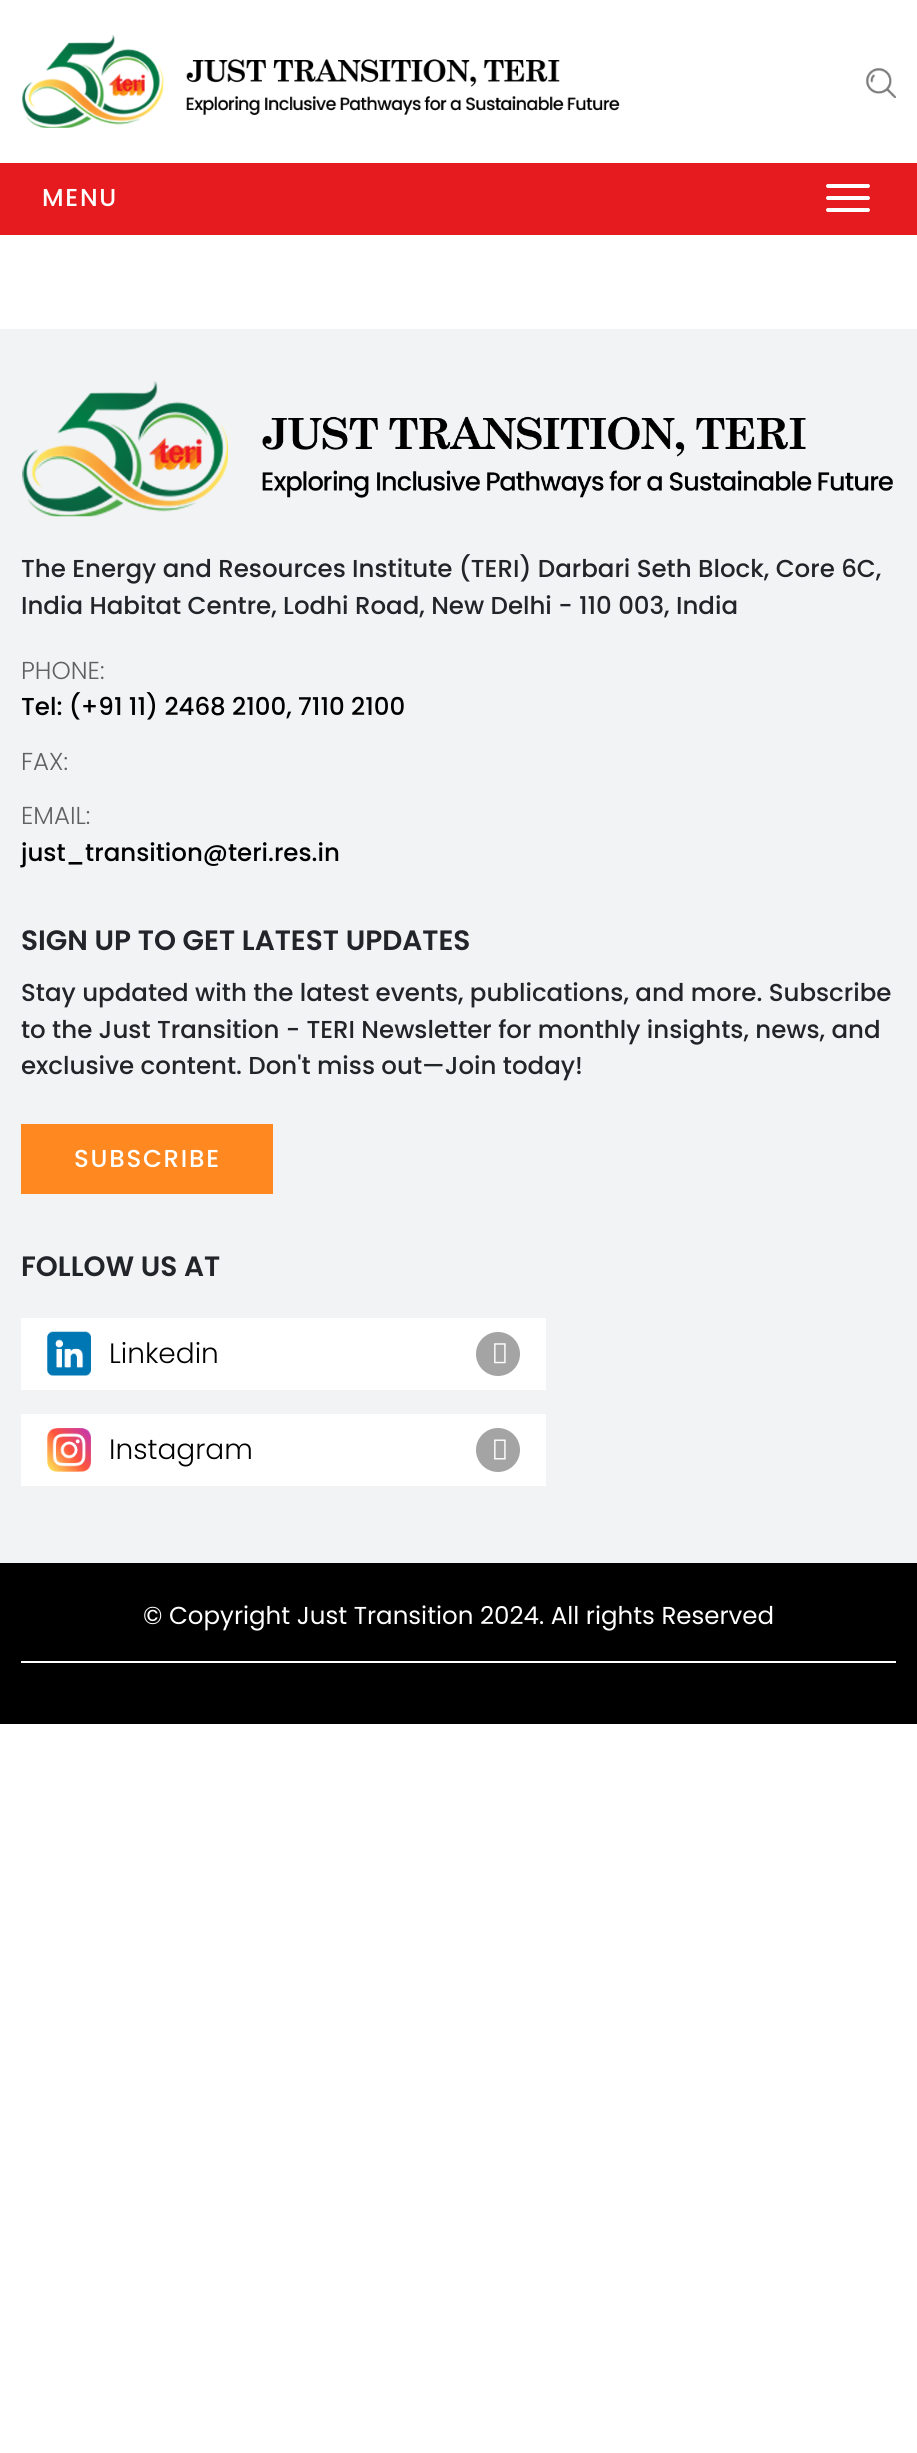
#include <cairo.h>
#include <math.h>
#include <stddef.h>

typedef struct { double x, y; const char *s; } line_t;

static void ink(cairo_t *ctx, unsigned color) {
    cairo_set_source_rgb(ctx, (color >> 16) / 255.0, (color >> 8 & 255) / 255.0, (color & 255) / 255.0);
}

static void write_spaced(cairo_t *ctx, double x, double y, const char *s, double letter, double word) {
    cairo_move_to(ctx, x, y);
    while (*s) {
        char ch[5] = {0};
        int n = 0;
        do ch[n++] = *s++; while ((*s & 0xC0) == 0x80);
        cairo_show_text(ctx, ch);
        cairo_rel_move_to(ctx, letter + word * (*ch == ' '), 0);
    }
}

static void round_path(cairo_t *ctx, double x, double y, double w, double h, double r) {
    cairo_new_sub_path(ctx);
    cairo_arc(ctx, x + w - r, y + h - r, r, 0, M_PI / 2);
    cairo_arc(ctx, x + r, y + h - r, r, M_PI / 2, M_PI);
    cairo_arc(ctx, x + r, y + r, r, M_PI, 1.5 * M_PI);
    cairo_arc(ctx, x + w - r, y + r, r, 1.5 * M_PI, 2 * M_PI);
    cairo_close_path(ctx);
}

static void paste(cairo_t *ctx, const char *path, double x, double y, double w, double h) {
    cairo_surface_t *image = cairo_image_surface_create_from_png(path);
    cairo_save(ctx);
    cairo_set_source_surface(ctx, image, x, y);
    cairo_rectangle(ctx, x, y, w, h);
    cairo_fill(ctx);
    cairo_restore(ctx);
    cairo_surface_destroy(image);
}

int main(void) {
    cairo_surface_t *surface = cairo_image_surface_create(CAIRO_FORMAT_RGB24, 917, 2453);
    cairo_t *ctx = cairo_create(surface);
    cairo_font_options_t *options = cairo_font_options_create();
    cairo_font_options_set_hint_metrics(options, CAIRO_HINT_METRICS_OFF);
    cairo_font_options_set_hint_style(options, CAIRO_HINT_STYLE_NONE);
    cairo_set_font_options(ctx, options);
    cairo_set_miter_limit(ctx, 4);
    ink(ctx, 0xFFFFFF);
    cairo_paint(ctx);
    paste(ctx, "media/1.png", 21, 35, 599, 93);
    paste(ctx, "media/2.png", 866, 68, 30, 30);
    ink(ctx, 0xE61B1F);
    cairo_rectangle(ctx, 0, 163, 917, 72);
    cairo_fill(ctx);
    cairo_select_font_face(ctx, "Poppins Medium", CAIRO_FONT_SLANT_NORMAL, CAIRO_FONT_WEIGHT_NORMAL);
    cairo_set_font_size(ctx, 24.5);
    ink(ctx, 0xFFFFFF);
    write_spaced(ctx, 42, 206, "MENU", 1.75, 0);
    round_path(ctx, 826, 184, 44, 4, 2);
    cairo_fill(ctx);
    round_path(ctx, 826, 196, 44, 4, 2);
    cairo_fill(ctx);
    round_path(ctx, 826, 208, 44, 4, 2);
    cairo_fill(ctx);
    ink(ctx, 0xF2F3F5);
    cairo_rectangle(ctx, 0, 329, 917, 1234);
    cairo_fill(ctx);
    paste(ctx, "media/3.png", 22, 381, 871, 136);
    ink(ctx, 0x212529);
    cairo_move_to(ctx, 21, 577);
    cairo_show_text(ctx, "The Energy and Resources Institute (TERI) Darbari Seth Block, Core 6C,");
    cairo_move_to(ctx, 21, 614);
    cairo_show_text(ctx, "India Habitat Centre, Lodhi Road, New Delhi - 110 003, India");
    cairo_select_font_face(ctx, "Poppins Light", CAIRO_FONT_SLANT_NORMAL, CAIRO_FONT_WEIGHT_NORMAL);
    ink(ctx, 0x616161);
    cairo_move_to(ctx, 21, 679);
    cairo_show_text(ctx, "PHONE:");
    cairo_select_font_face(ctx, "Poppins Medium", CAIRO_FONT_SLANT_NORMAL, CAIRO_FONT_WEIGHT_NORMAL);
    ink(ctx, 0x000000);
    cairo_move_to(ctx, 21, 715);
    cairo_show_text(ctx, "Tel: (+91 11) 2468 2100, 7110 2100");
    cairo_select_font_face(ctx, "Poppins Light", CAIRO_FONT_SLANT_NORMAL, CAIRO_FONT_WEIGHT_NORMAL);
    ink(ctx, 0x616161);
    cairo_move_to(ctx, 21, 770);
    cairo_show_text(ctx, "FAX:");
    cairo_move_to(ctx, 21, 824);
    cairo_show_text(ctx, "EMAIL:");
    cairo_select_font_face(ctx, "Poppins Medium", CAIRO_FONT_SLANT_NORMAL, CAIRO_FONT_WEIGHT_NORMAL);
    ink(ctx, 0x000000);
    cairo_move_to(ctx, 21, 861);
    cairo_show_text(ctx, "just_transition@teri.res.in");
    cairo_select_font_face(ctx, "Poppins SemiBold", CAIRO_FONT_SLANT_NORMAL, CAIRO_FONT_WEIGHT_NORMAL);
    cairo_set_font_size(ctx, 28);
    ink(ctx, 0x212529);
    cairo_move_to(ctx, 21, 950);
    cairo_show_text(ctx, "SIGN UP TO GET LATEST UPDATES");
    cairo_select_font_face(ctx, "Poppins Medium", CAIRO_FONT_SLANT_NORMAL, CAIRO_FONT_WEIGHT_NORMAL);
    cairo_set_font_size(ctx, 24.5);
    {
        static const line_t items[] = {
            {21, 1001, "Stay updated with the latest events, publications, and more. Subscribe"},
            {21, 1038, "to the Just Transition - TERI Newsletter for monthly insights, news, and"},
            {21, 1074, "exclusive content. Don't miss out—Join today!"},
        };
        for (size_t i = 0; i < sizeof items / sizeof *items; i++) {
            cairo_move_to(ctx, items[i].x, items[i].y);
            cairo_show_text(ctx, items[i].s);
        }
    }
    ink(ctx, 0xFF8920);
    cairo_rectangle(ctx, 21, 1124, 252, 70);
    cairo_fill(ctx);
    ink(ctx, 0xFFFFFF);
    write_spaced(ctx, 74, 1167, "SUBSCRIBE", 1.75, 0);
    cairo_select_font_face(ctx, "Poppins SemiBold", CAIRO_FONT_SLANT_NORMAL, CAIRO_FONT_WEIGHT_NORMAL);
    cairo_set_font_size(ctx, 28);
    ink(ctx, 0x212529);
    cairo_move_to(ctx, 21, 1276);
    cairo_show_text(ctx, "FOLLOW US AT");
    ink(ctx, 0xFFFFFF);
    cairo_rectangle(ctx, 21, 1318, 525, 72);
    cairo_fill(ctx);
    paste(ctx, "media/4.png", 47, 1331, 44, 45);
    cairo_select_font_face(ctx, "Poppins Light", CAIRO_FONT_SLANT_NORMAL, CAIRO_FONT_WEIGHT_NORMAL);
    ink(ctx, 0x000000);
    cairo_move_to(ctx, 109, 1363);
    cairo_show_text(ctx, "Linkedin");
    ink(ctx, 0xA4A4A4);
    cairo_new_path(ctx);
    cairo_arc(ctx, 498, 1354, 22, 0, 2 * M_PI);
    cairo_fill(ctx);
    paste(ctx, "media/5.png", 494, 1343, 12, 21);
    ink(ctx, 0xFFFFFF);
    cairo_rectangle(ctx, 21, 1414, 525, 72);
    cairo_fill(ctx);
    paste(ctx, "media/6.png", 47, 1428, 44, 44);
    ink(ctx, 0x000000);
    cairo_move_to(ctx, 109, 1459);
    cairo_show_text(ctx, "Instagram");
    ink(ctx, 0xA4A4A4);
    cairo_new_path(ctx);
    cairo_arc(ctx, 498, 1450, 22, 0, 2 * M_PI);
    cairo_fill(ctx);
    paste(ctx, "media/7.png", 494, 1439, 12, 21);
    ink(ctx, 0x000000);
    cairo_rectangle(ctx, 0, 1563, 917, 161);
    cairo_fill(ctx);
    cairo_select_font_face(ctx, "Poppins", CAIRO_FONT_SLANT_NORMAL, CAIRO_FONT_WEIGHT_NORMAL);
    cairo_set_font_size(ctx, 24.5);
    ink(ctx, 0xFFFFFF);
    cairo_move_to(ctx, 143, 1624);
    cairo_show_text(ctx, "© Copyright Just Transition 2024. All rights Reserved");
    cairo_rectangle(ctx, 21, 1661, 875, 2);
    cairo_fill(ctx);
    cairo_surface_write_to_png(surface, "image.png");
    cairo_font_options_destroy(options);
    cairo_destroy(ctx);
    cairo_surface_destroy(surface);
    return 0;
}
